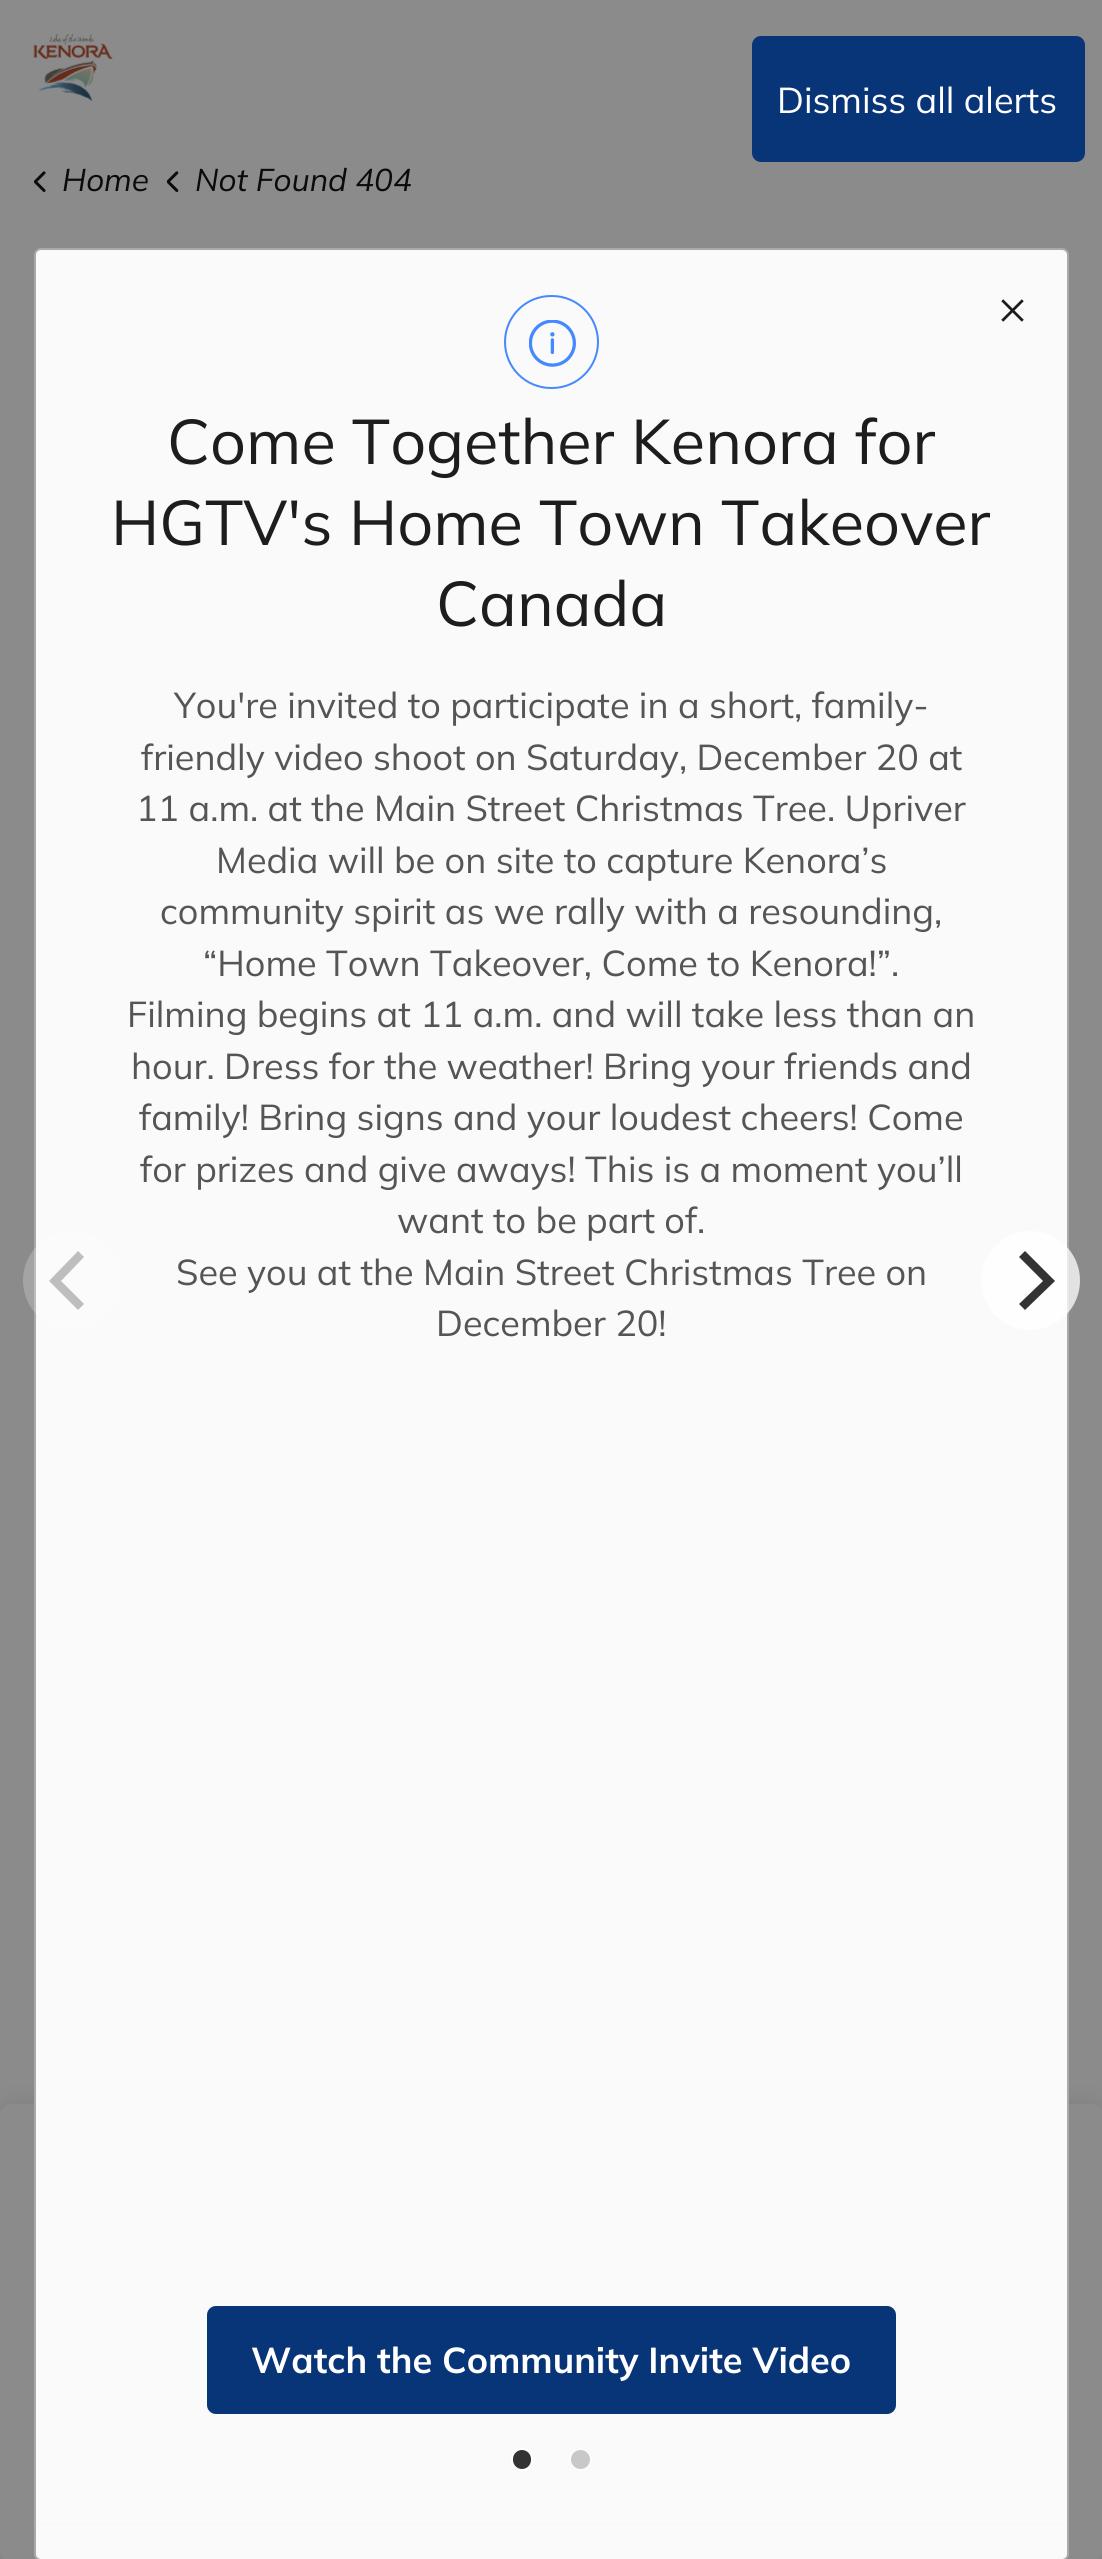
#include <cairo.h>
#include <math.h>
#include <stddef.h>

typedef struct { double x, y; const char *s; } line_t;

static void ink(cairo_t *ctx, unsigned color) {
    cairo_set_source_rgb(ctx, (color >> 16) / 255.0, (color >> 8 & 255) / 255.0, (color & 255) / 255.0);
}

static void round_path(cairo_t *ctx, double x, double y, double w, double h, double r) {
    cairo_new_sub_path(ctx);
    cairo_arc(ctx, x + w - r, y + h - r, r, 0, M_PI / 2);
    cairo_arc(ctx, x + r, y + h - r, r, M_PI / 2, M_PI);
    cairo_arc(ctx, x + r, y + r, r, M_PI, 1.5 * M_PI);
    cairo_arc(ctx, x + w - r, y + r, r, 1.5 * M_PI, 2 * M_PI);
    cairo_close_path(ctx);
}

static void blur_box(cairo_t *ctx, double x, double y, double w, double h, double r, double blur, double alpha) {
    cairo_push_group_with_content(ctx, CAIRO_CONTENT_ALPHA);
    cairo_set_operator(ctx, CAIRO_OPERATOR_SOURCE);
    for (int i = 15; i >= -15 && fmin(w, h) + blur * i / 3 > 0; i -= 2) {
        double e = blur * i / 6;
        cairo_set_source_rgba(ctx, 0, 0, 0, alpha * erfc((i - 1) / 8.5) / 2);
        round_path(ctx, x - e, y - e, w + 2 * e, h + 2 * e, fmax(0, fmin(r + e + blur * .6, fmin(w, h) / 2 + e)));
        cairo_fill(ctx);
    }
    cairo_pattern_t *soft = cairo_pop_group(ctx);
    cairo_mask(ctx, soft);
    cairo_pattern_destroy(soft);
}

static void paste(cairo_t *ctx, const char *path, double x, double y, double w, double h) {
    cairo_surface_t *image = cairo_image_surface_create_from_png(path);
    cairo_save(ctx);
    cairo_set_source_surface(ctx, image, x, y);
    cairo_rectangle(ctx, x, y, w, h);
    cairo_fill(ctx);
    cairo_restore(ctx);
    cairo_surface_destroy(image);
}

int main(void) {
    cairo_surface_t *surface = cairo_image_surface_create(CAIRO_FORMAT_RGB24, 1102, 2559);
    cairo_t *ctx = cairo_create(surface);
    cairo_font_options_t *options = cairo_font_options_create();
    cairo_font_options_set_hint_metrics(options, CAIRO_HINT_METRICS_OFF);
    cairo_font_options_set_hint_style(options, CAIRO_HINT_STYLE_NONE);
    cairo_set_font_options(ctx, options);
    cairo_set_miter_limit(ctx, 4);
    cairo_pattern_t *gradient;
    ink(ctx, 0x8B8B8B);
    cairo_paint(ctx);
    ink(ctx, 0x083478);
    round_path(ctx, 752, 36, 333, 126, 9);
    cairo_fill(ctx);
    cairo_select_font_face(ctx, "Mulish", CAIRO_FONT_SLANT_NORMAL, CAIRO_FONT_WEIGHT_NORMAL);
    cairo_set_font_size(ctx, 36);
    ink(ctx, 0xFFFFFF);
    cairo_move_to(ctx, 777, 113);
    cairo_show_text(ctx, "Dismiss all alerts");
    ink(ctx, 0x0B0B0B);
    blur_box(ctx, 0, 2104, 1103, 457, 11, 11, 0.1);
    ink(ctx, 0x8B8B8B);
    round_path(ctx, 0, 2104, 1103, 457, 11);
    cairo_fill(ctx);
    ink(ctx, 0xFAFAFA);
    round_path(ctx, 35, 249, 1033, 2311, 6);
    cairo_fill_preserve(ctx);
    ink(ctx, 0xA7A9AC);
    cairo_stroke(ctx);
    cairo_set_source_rgba(ctx, 1, 1, 1, 0.22);
    cairo_arc(ctx, 72.5, 1280.5, 49.5, 0, 2 * M_PI);
    cairo_fill(ctx);
    ink(ctx, 0xBEBEBE);
    cairo_new_path(ctx);
    cairo_move_to(ctx, 49, 1281);
    cairo_line_to(ctx, 78, 1310);
    cairo_line_to(ctx, 84, 1304);
    cairo_line_to(ctx, 61, 1281);
    cairo_line_to(ctx, 84, 1257);
    cairo_line_to(ctx, 78, 1251);
    cairo_close_path(ctx);
    cairo_fill(ctx);
    paste(ctx, "media/1.png", 529, 320, 47, 47);
    round_path(ctx, 505, 296, 93, 92, 46);
    ink(ctx, 0x4589FF);
    cairo_stroke(ctx);
    paste(ctx, "media/2.png", 1001, 299, 23, 23);
    cairo_set_font_size(ctx, 63);
    ink(ctx, 0x1D1D1D);
    {
        static const line_t items[] = {
            {167, 464, "Come Together Kenora for"},
            {111, 545, "HGTV's Home Town Takeover"},
            {436, 626, "Canada"},
        };
        for (size_t i = 0; i < sizeof items / sizeof *items; i++) {
            cairo_move_to(ctx, items[i].x, items[i].y);
            cairo_show_text(ctx, items[i].s);
        }
    }
    cairo_set_font_size(ctx, 36);
    ink(ctx, 0x555555);
    {
        static const line_t items[] = {
            {174, 718, "You're invited to participate in a short, family-"},
            {141, 770, "friendly video shoot on Saturday, December 20 at"},
            {136, 821, "11 a.m. at the Main Street Christmas Tree. Upriver"},
            {216, 873, "Media will be on site to capture Kenora’s"},
            {160, 924, "community spirit as we rally with a resounding,"},
            {203, 976, "“Home Town Takeover, Come to Kenora!”."},
            {127, 1027, "Filming begins at 11 a.m. and will take less than an"},
            {131, 1079, "hour. Dress for the weather! Bring your friends and"},
            {139, 1130, "family! Bring signs and your loudest cheers! Come"},
            {140, 1182, "for prizes and give aways! This is a moment you’ll"},
            {397, 1233, "want to be part of."},
            {176, 1285, "See you at the Main Street Christmas Tree on"},
            {436, 1336, "December 20!"},
        };
        for (size_t i = 0; i < sizeof items / sizeof *items; i++) {
            cairo_move_to(ctx, items[i].x, items[i].y);
            cairo_show_text(ctx, items[i].s);
        }
    }
    ink(ctx, 0x083478);
    round_path(ctx, 207, 2306, 689, 108, 9);
    cairo_fill(ctx);
    cairo_select_font_face(ctx, "Mulish", CAIRO_FONT_SLANT_NORMAL, CAIRO_FONT_WEIGHT_BOLD);
    ink(ctx, 0xFFFFFF);
    cairo_move_to(ctx, 251, 2373);
    cairo_show_text(ctx, "Watch the Community Invite Video");
    gradient = cairo_pattern_create_linear(551, 2522, 551, 2558);
    cairo_pattern_add_color_stop_rgba(gradient, 0, 0.98, 0.98, 0.98, 0);
    cairo_pattern_add_color_stop_rgba(gradient, 1, 0.98, 0.98, 0.98, 1);
    cairo_set_source(ctx, gradient);
    cairo_pattern_destroy(gradient);
    cairo_new_path(ctx);
    cairo_move_to(ctx, 36, 2522);
    cairo_line_to(ctx, 1067, 2522);
    cairo_line_to(ctx, 1067, 2553);
    cairo_curve_to(ctx, 1067, 2556, 1065, 2558, 1062, 2558);
    cairo_line_to(ctx, 41, 2558);
    cairo_curve_to(ctx, 38, 2558, 36, 2556, 36, 2553);
    cairo_close_path(ctx);
    cairo_fill(ctx);
    cairo_set_source_rgba(ctx, 1, 1, 1, 0.75);
    cairo_arc(ctx, 1030.5, 1280.5, 49.5, 0, 2 * M_PI);
    cairo_fill(ctx);
    ink(ctx, 0x333333);
    cairo_new_path(ctx);
    cairo_move_to(ctx, 1055, 1281);
    cairo_line_to(ctx, 1025, 1251);
    cairo_line_to(ctx, 1019, 1257);
    cairo_line_to(ctx, 1043, 1281);
    cairo_line_to(ctx, 1019, 1304);
    cairo_line_to(ctx, 1025, 1310);
    cairo_close_path(ctx);
    cairo_fill(ctx);
    round_path(ctx, 512, 2449, 20, 21, 10);
    cairo_fill_preserve(ctx);
    ink(ctx, 0xFFFFFF);
    cairo_stroke(ctx);
    ink(ctx, 0xC8C8C8);
    cairo_arc(ctx, 580.5, 2459.5, 10.5, 0, 2 * M_PI);
    cairo_fill_preserve(ctx);
    ink(ctx, 0xFBFBFB);
    cairo_stroke(ctx);
    paste(ctx, "media/3.png", 33, 33, 80, 68);
    paste(ctx, "media/4.png", 34, 171, 12, 21);
    cairo_select_font_face(ctx, "Mulish", CAIRO_FONT_SLANT_ITALIC, CAIRO_FONT_WEIGHT_NORMAL);
    cairo_set_font_size(ctx, 31.5);
    ink(ctx, 0x0B0B0B);
    cairo_move_to(ctx, 62, 191);
    cairo_show_text(ctx, "Home");
    paste(ctx, "media/5.png", 167, 171, 12, 21);
    cairo_move_to(ctx, 195, 191);
    cairo_show_text(ctx, "Not Found 404");
    cairo_surface_write_to_png(surface, "image.png");
    cairo_font_options_destroy(options);
    cairo_destroy(ctx);
    cairo_surface_destroy(surface);
    return 0;
}
